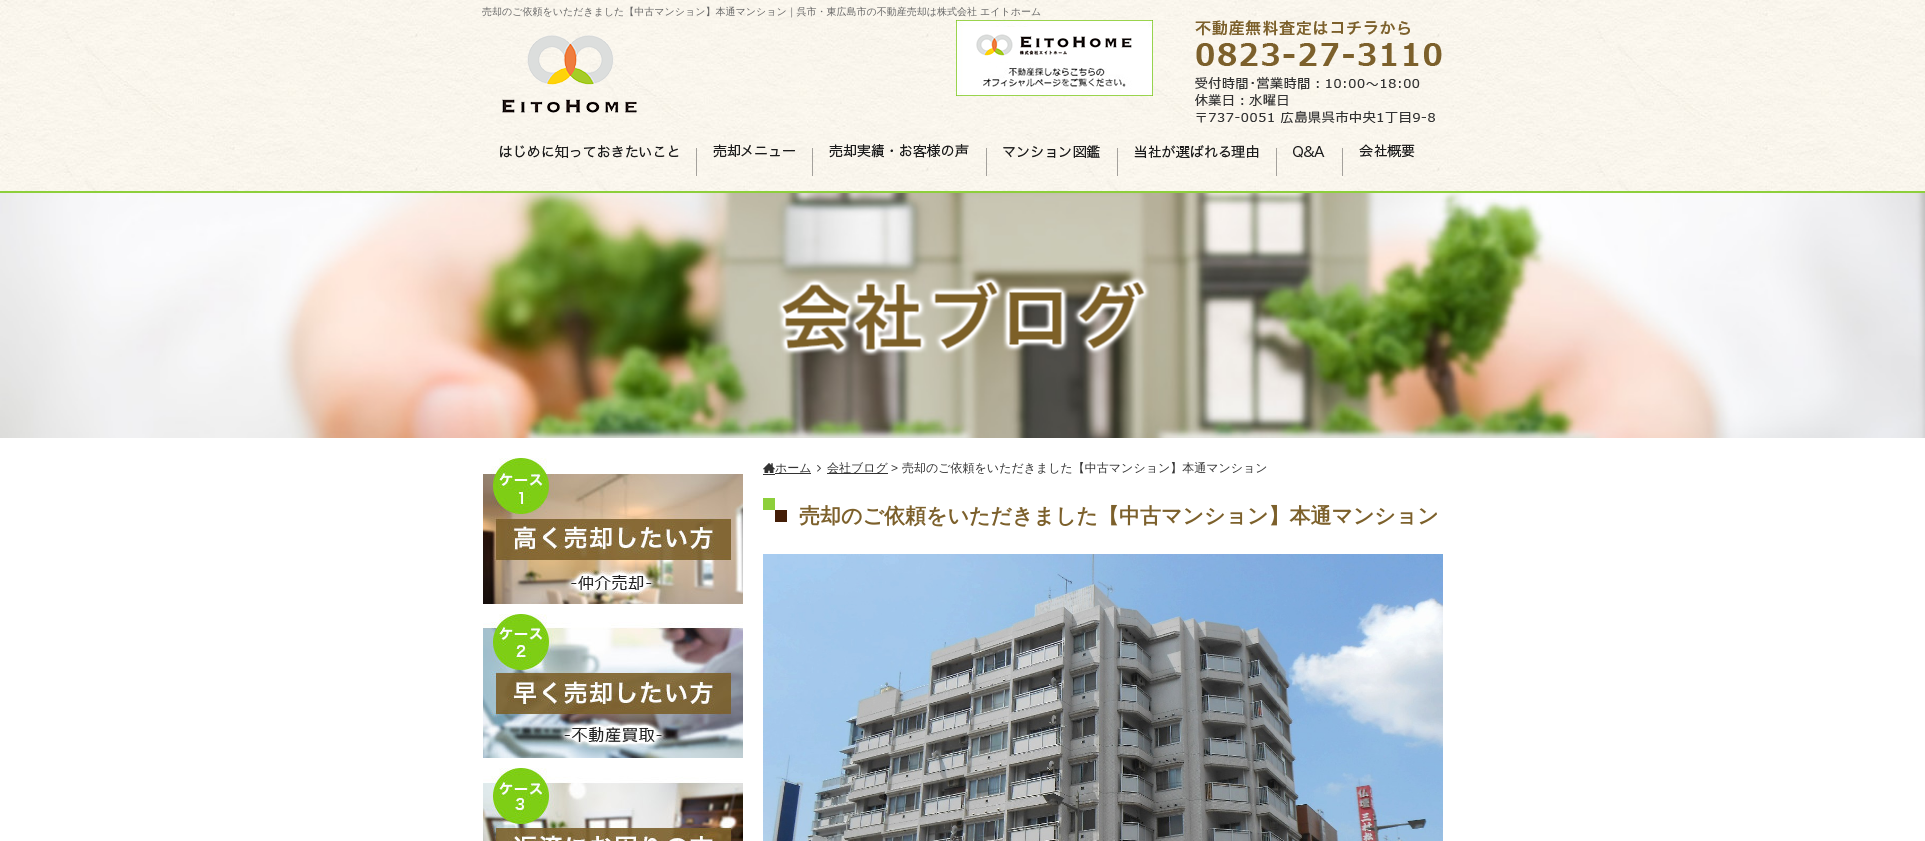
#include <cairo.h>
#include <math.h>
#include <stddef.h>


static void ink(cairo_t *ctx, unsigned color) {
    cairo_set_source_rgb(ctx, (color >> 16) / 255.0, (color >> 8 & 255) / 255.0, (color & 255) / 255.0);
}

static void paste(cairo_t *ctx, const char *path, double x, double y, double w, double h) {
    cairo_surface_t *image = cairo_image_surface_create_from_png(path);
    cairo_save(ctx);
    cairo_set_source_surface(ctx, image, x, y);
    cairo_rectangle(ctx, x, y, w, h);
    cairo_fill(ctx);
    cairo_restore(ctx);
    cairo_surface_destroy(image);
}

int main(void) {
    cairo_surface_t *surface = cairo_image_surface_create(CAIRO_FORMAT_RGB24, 1925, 841);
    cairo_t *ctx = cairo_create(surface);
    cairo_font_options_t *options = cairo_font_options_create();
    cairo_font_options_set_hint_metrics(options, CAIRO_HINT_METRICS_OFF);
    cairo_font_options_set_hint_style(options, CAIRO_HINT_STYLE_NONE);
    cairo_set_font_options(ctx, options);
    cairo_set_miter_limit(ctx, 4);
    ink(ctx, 0xFFFFFF);
    cairo_paint(ctx);
    paste(ctx, "media/1.png", 0, 0, 1925, 134);
    cairo_select_font_face(ctx, "WenQuanYi Zen Hei Medium", CAIRO_FONT_SLANT_NORMAL, CAIRO_FONT_WEIGHT_NORMAL);
    cairo_set_font_size(ctx, 10);
    ink(ctx, 0x666666);
    cairo_move_to(ctx, 482, 15);
    cairo_show_text(ctx, "売却のご依頼をいただきました【中古マンション】本通マンション｜呉市・東広島市の不動産売却は株式会社 エイトホーム");
    paste(ctx, "media/2.png", 502, 35, 135, 78);
    paste(ctx, "media/3.png", 956, 20, 197, 76);
    paste(ctx, "media/4.png", 1195, 20, 247, 104);
    paste(ctx, "media/5.png", 0, 134, 1925, 57);
    ink(ctx, 0x8DCF3B);
    cairo_rectangle(ctx, 0, 191, 1925, 2);
    cairo_fill(ctx);
    paste(ctx, "media/6.png", 500, 145, 179, 13);
    ink(ctx, 0xA4A19C);
    cairo_rectangle(ctx, 696, 148, 1, 28);
    cairo_fill(ctx);
    paste(ctx, "media/7.png", 713, 144, 82, 14);
    cairo_rectangle(ctx, 812, 148, 1, 28);
    cairo_fill(ctx);
    paste(ctx, "media/8.png", 829, 144, 140, 14);
    cairo_rectangle(ctx, 986, 148, 1, 28);
    cairo_fill(ctx);
    paste(ctx, "media/9.png", 1003, 145, 97, 13);
    cairo_rectangle(ctx, 1117, 148, 1, 28);
    cairo_fill(ctx);
    paste(ctx, "media/10.png", 1134, 145, 125, 13);
    cairo_rectangle(ctx, 1276, 148, 1, 28);
    cairo_fill(ctx);
    paste(ctx, "media/11.png", 1293, 146, 32, 12);
    cairo_rectangle(ctx, 1342, 148, 1, 28);
    cairo_fill(ctx);
    paste(ctx, "media/12.png", 1359, 144, 56, 14);
    paste(ctx, "media/13.png", 0, 193, 1925, 245);
    paste(ctx, "media/14.png", 777, 276, 373, 80);
    paste(ctx, "media/15.png", 483, 458, 260, 146);
    paste(ctx, "media/16.png", 483, 614, 260, 144);
    paste(ctx, "media/17.png", 483, 768, 260, 73);
    paste(ctx, "media/18.png", 763, 463, 12, 10);
    ink(ctx, 0x333333);
    cairo_rectangle(ctx, 763, 474, 12, 1);
    cairo_fill(ctx);
    cairo_rectangle(ctx, 775, 473, 36, 1);
    cairo_fill(ctx);
    cairo_set_font_size(ctx, 12);
    cairo_move_to(ctx, 775, 472);
    cairo_show_text(ctx, "ホーム");
    paste(ctx, "media/19.png", 817, 465, 4, 7);
    cairo_rectangle(ctx, 827, 473, 61, 1);
    cairo_fill(ctx);
    cairo_move_to(ctx, 827, 472);
    cairo_show_text(ctx, "会社ブログ");
    cairo_select_font_face(ctx, "Liberation Sans", CAIRO_FONT_SLANT_NORMAL, CAIRO_FONT_WEIGHT_NORMAL);
    cairo_move_to(ctx, 891, 472);
    cairo_show_text(ctx, ">");
    cairo_select_font_face(ctx, "WenQuanYi Zen Hei Medium", CAIRO_FONT_SLANT_NORMAL, CAIRO_FONT_WEIGHT_NORMAL);
    cairo_move_to(ctx, 902, 472);
    cairo_show_text(ctx, "売却のご依頼をいただきました【中古マンション】本通マンション");
    ink(ctx, 0x8DCF3B);
    cairo_rectangle(ctx, 763, 498, 12, 12);
    cairo_fill(ctx);
    ink(ctx, 0x441E07);
    cairo_rectangle(ctx, 775, 510, 12, 12);
    cairo_fill(ctx);
    cairo_select_font_face(ctx, "WenQuanYi Zen Hei", CAIRO_FONT_SLANT_NORMAL, CAIRO_FONT_WEIGHT_BOLD);
    cairo_set_font_size(ctx, 21);
    ink(ctx, 0x7C602B);
    cairo_move_to(ctx, 799, 523);
    cairo_show_text(ctx, "売却のご依頼をいただきました【中古マンション】本通マンション");
    paste(ctx, "media/20.png", 763, 554, 680, 287);
    cairo_surface_write_to_png(surface, "image.png");
    cairo_font_options_destroy(options);
    cairo_destroy(ctx);
    cairo_surface_destroy(surface);
    return 0;
}
